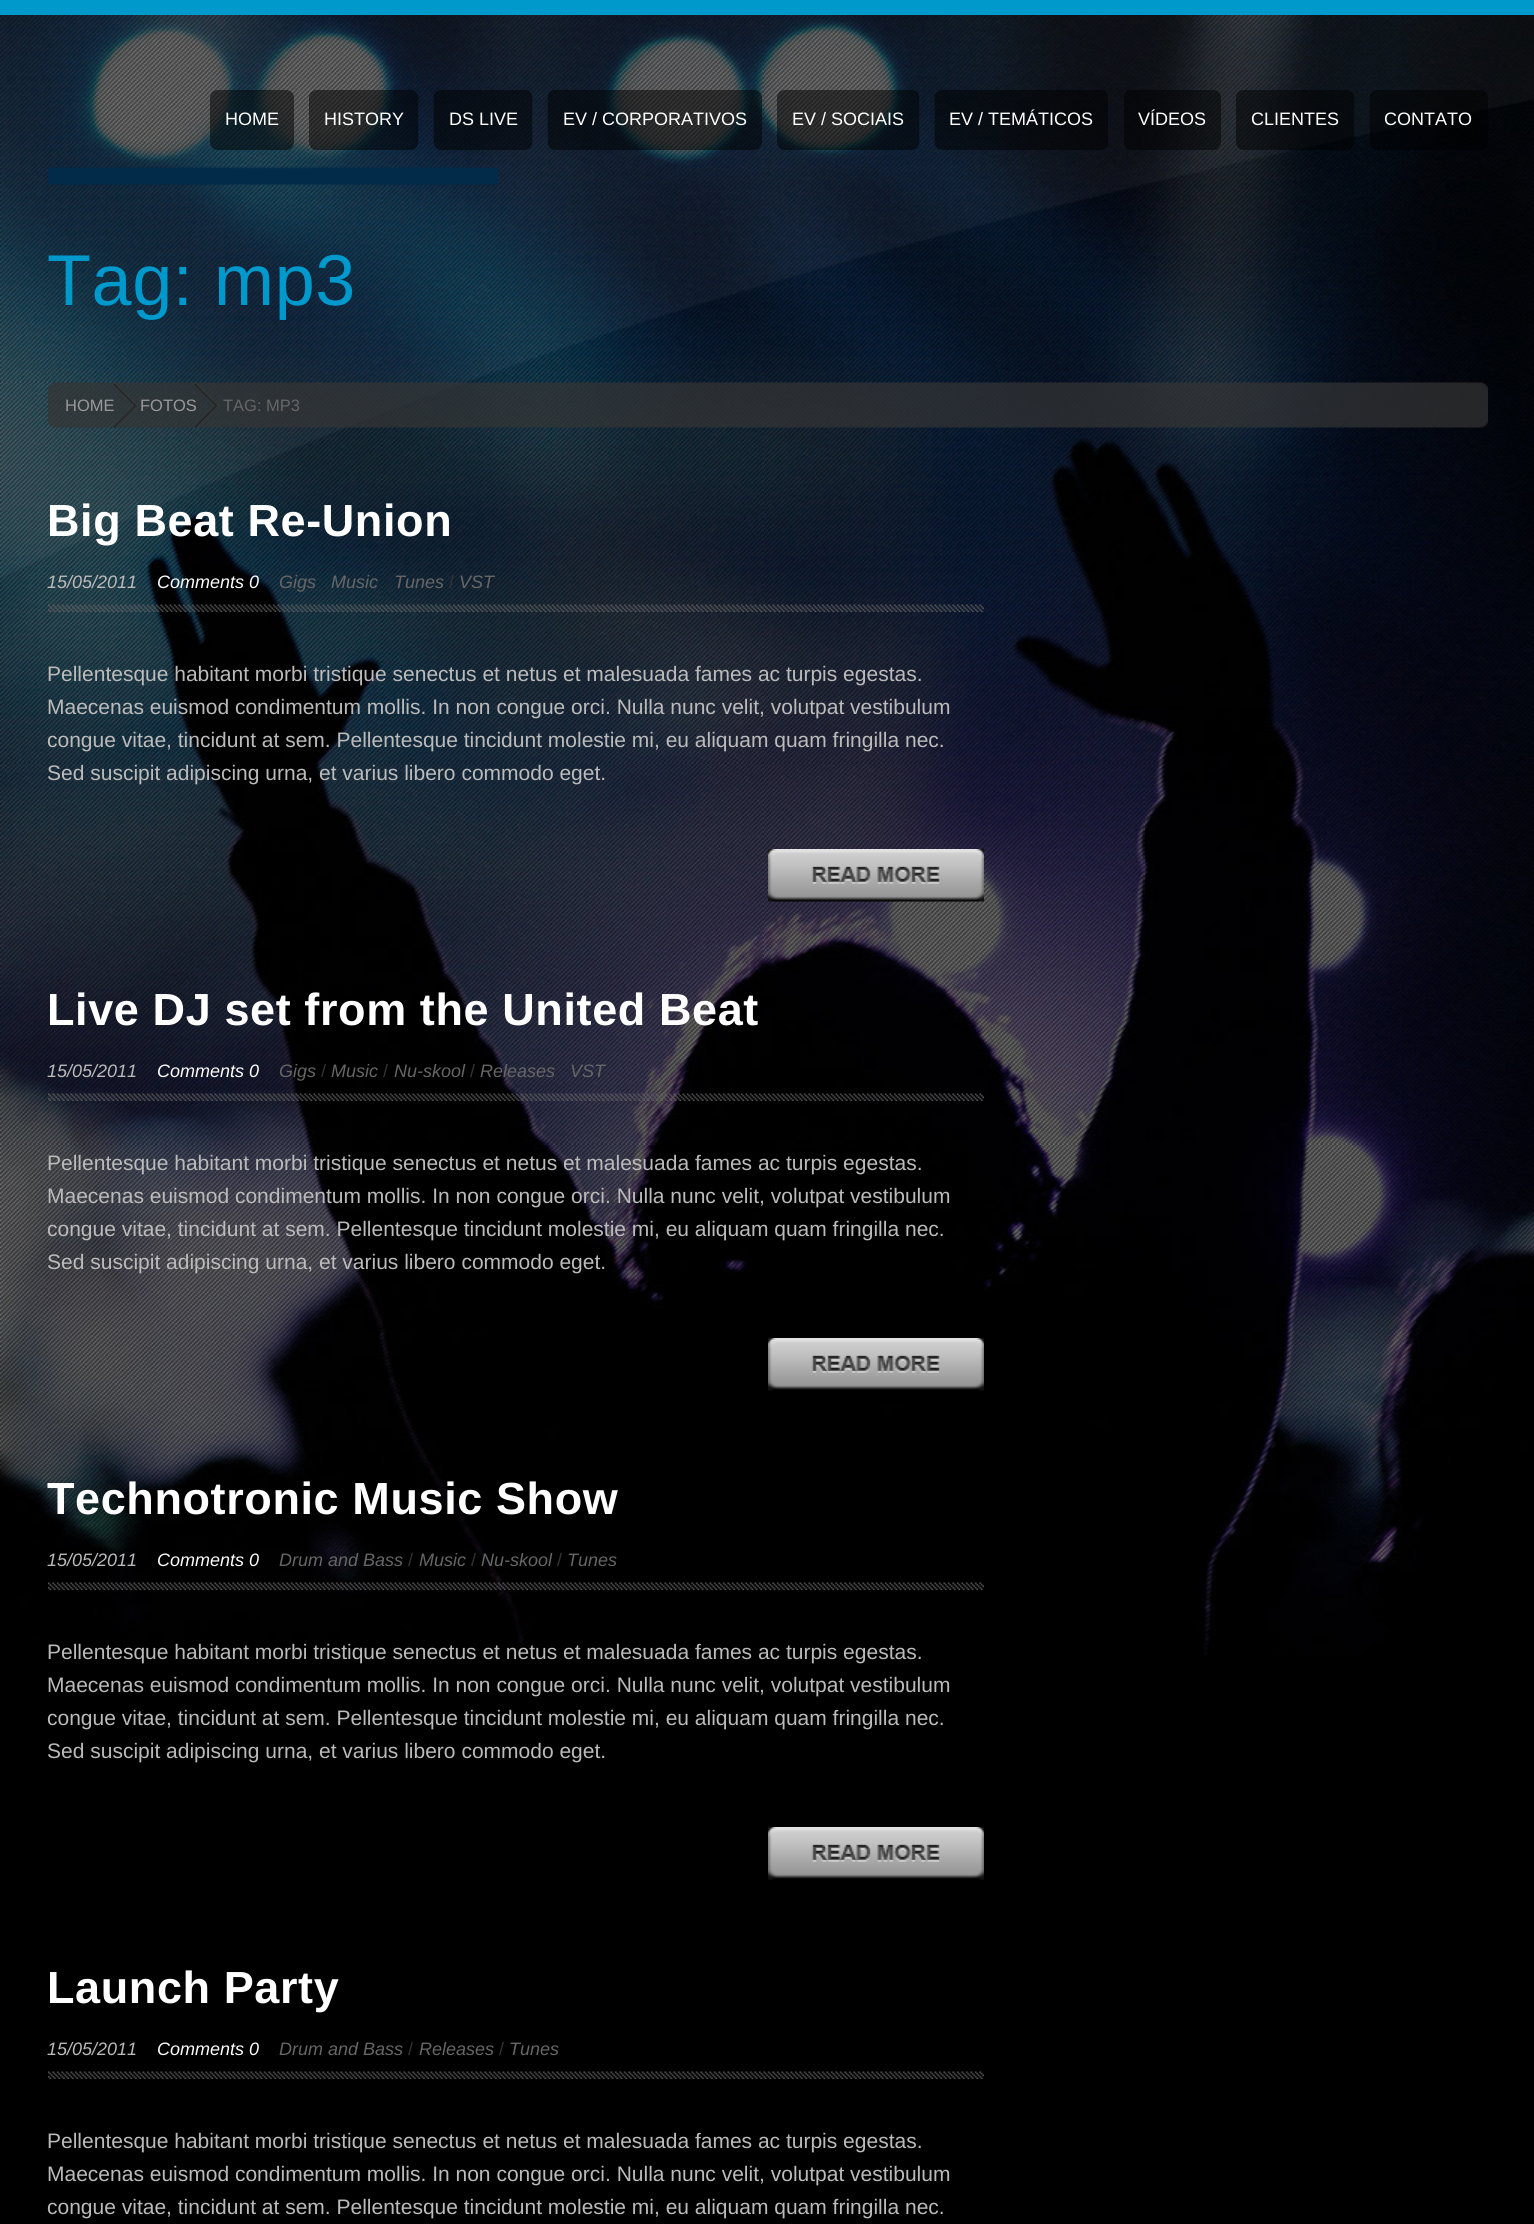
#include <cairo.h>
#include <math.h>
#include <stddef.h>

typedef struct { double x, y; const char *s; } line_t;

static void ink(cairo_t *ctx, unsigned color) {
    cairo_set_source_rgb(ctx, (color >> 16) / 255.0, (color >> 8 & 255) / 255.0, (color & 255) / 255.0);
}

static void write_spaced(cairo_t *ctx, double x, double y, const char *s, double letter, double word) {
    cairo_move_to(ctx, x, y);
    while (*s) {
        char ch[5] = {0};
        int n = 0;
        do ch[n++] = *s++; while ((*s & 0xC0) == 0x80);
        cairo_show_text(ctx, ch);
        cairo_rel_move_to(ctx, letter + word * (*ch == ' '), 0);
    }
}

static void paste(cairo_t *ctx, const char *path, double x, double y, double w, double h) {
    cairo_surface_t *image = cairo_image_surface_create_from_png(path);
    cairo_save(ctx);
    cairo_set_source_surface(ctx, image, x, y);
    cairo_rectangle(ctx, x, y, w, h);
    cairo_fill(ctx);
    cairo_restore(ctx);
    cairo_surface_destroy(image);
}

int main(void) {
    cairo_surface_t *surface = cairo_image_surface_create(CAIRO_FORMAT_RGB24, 1534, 2224);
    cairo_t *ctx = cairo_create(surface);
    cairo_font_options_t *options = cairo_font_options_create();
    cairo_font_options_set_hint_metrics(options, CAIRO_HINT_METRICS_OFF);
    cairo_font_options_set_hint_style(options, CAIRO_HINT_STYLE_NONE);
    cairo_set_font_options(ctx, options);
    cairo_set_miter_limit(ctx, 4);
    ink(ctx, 0x000000);
    cairo_paint(ctx);
    paste(ctx, "media/1.png", 0, 15, 1534, 1642);
    paste(ctx, "media/2.png", 0, 15, 1534, 563);
    ink(ctx, 0x0099CC);
    cairo_rectangle(ctx, 0, 0, 1534, 15);
    cairo_fill(ctx);
    paste(ctx, "media/3.png", 210, 90, 84, 60);
    cairo_select_font_face(ctx, "Liberation Sans", CAIRO_FONT_SLANT_NORMAL, CAIRO_FONT_WEIGHT_NORMAL);
    cairo_set_font_size(ctx, 18);
    ink(ctx, 0xFFFFFF);
    cairo_move_to(ctx, 225, 125);
    cairo_show_text(ctx, "HOME");
    paste(ctx, "media/4.png", 309, 90, 110, 60);
    cairo_move_to(ctx, 324, 125);
    cairo_show_text(ctx, "HISTORY");
    paste(ctx, "media/5.png", 433, 90, 100, 60);
    cairo_move_to(ctx, 449, 125);
    cairo_show_text(ctx, "DS LIVE");
    paste(ctx, "media/6.png", 547, 90, 215, 60);
    cairo_move_to(ctx, 563, 125);
    cairo_show_text(ctx, "EV / CORPORATIVOS");
    paste(ctx, "media/7.png", 777, 90, 143, 60);
    cairo_move_to(ctx, 792, 125);
    cairo_show_text(ctx, "EV / SOCIAIS");
    paste(ctx, "media/8.png", 934, 90, 174, 60);
    cairo_move_to(ctx, 949, 125);
    cairo_show_text(ctx, "EV / TEMÁTICOS");
    paste(ctx, "media/9.png", 1124, 90, 97, 60);
    cairo_move_to(ctx, 1138, 125);
    cairo_show_text(ctx, "VÍDEOS");
    paste(ctx, "media/10.png", 1236, 90, 119, 60);
    cairo_move_to(ctx, 1251, 125);
    cairo_show_text(ctx, "CLIENTES");
    paste(ctx, "media/11.png", 1369, 90, 119, 60);
    cairo_move_to(ctx, 1384, 125);
    cairo_show_text(ctx, "CONTATO");
    paste(ctx, "media/12.png", 48, 166, 450, 19);
    cairo_set_font_size(ctx, 72);
    ink(ctx, 0x0099CC);
    write_spaced(ctx, 47, 305, "Tag: mp3", 0.6, 0);
    paste(ctx, "media/13.png", 48, 382, 1440, 46);
    paste(ctx, "media/14.png", 114, 384, 24, 44);
    cairo_set_font_size(ctx, 16.5);
    ink(ctx, 0x999999);
    cairo_move_to(ctx, 65, 411);
    cairo_show_text(ctx, "HOME");
    paste(ctx, "media/15.png", 195, 384, 24, 44);
    cairo_move_to(ctx, 140, 411);
    cairo_show_text(ctx, "FOTOS");
    ink(ctx, 0x666666);
    cairo_move_to(ctx, 223, 411);
    cairo_show_text(ctx, "TAG: MP3");
    cairo_select_font_face(ctx, "Liberation Sans", CAIRO_FONT_SLANT_NORMAL, CAIRO_FONT_WEIGHT_BOLD);
    cairo_set_font_size(ctx, 45);
    ink(ctx, 0xFFFFFF);
    write_spaced(ctx, 47, 536, "Big Beat Re-Union", 0.6, 0);
    cairo_select_font_face(ctx, "Liberation Sans", CAIRO_FONT_SLANT_ITALIC, CAIRO_FONT_WEIGHT_NORMAL);
    cairo_set_font_size(ctx, 18);
    ink(ctx, 0xBBBBBB);
    cairo_move_to(ctx, 47, 588);
    cairo_show_text(ctx, "15/05/2011");
    ink(ctx, 0xFFFFFF);
    cairo_move_to(ctx, 157, 588);
    cairo_show_text(ctx, "Comments 0");
    ink(ctx, 0x666666);
    {
        static const line_t items[] = {
            {279, 588, "Gigs"},
            {331, 588, "Music"},
            {394, 588, "Tunes"},
        };
        for (size_t i = 0; i < sizeof items / sizeof *items; i++) {
            cairo_move_to(ctx, items[i].x, items[i].y);
            cairo_show_text(ctx, items[i].s);
        }
    }
    cairo_select_font_face(ctx, "Liberation Sans", CAIRO_FONT_SLANT_NORMAL, CAIRO_FONT_WEIGHT_NORMAL);
    ink(ctx, 0x333333);
    cairo_move_to(ctx, 449, 588);
    cairo_show_text(ctx, "/");
    cairo_select_font_face(ctx, "Liberation Sans", CAIRO_FONT_SLANT_ITALIC, CAIRO_FONT_WEIGHT_NORMAL);
    ink(ctx, 0x666666);
    cairo_move_to(ctx, 459, 588);
    cairo_show_text(ctx, "VST");
    paste(ctx, "media/16.png", 48, 604, 936, 8);
    cairo_select_font_face(ctx, "Liberation Sans", CAIRO_FONT_SLANT_NORMAL, CAIRO_FONT_WEIGHT_NORMAL);
    cairo_set_font_size(ctx, 21);
    ink(ctx, 0xBBBBBB);
    {
        static const line_t items[] = {
            {47, 681, "Pellentesque habitant morbi tristique senectus et netus et malesuada fames ac turpis egestas."},
            {47, 714, "Maecenas euismod condimentum mollis. In non congue orci. Nulla nunc velit, volutpat vestibulum"},
            {47, 747, "congue vitae, tincidunt at sem. Pellentesque tincidunt molestie mi, eu aliquam quam fringilla nec."},
            {47, 780, "Sed suscipit adipiscing urna, et varius libero commodo eget."},
        };
        for (size_t i = 0; i < sizeof items / sizeof *items; i++) {
            cairo_move_to(ctx, items[i].x, items[i].y);
            cairo_show_text(ctx, items[i].s);
        }
    }
    paste(ctx, "media/17.png", 768, 849, 216, 53);
    cairo_select_font_face(ctx, "Liberation Sans", CAIRO_FONT_SLANT_NORMAL, CAIRO_FONT_WEIGHT_BOLD);
    cairo_set_font_size(ctx, 45);
    ink(ctx, 0xFFFFFF);
    write_spaced(ctx, 47, 1025, "Live DJ set from the United Beat", 0.6, 0);
    cairo_select_font_face(ctx, "Liberation Sans", CAIRO_FONT_SLANT_ITALIC, CAIRO_FONT_WEIGHT_NORMAL);
    cairo_set_font_size(ctx, 18);
    ink(ctx, 0xBBBBBB);
    cairo_move_to(ctx, 47, 1077);
    cairo_show_text(ctx, "15/05/2011");
    ink(ctx, 0xFFFFFF);
    cairo_move_to(ctx, 157, 1077);
    cairo_show_text(ctx, "Comments 0");
    ink(ctx, 0x666666);
    cairo_move_to(ctx, 279, 1077);
    cairo_show_text(ctx, "Gigs");
    cairo_select_font_face(ctx, "Liberation Sans", CAIRO_FONT_SLANT_NORMAL, CAIRO_FONT_WEIGHT_NORMAL);
    ink(ctx, 0x333333);
    cairo_move_to(ctx, 321, 1077);
    cairo_show_text(ctx, "/");
    cairo_select_font_face(ctx, "Liberation Sans", CAIRO_FONT_SLANT_ITALIC, CAIRO_FONT_WEIGHT_NORMAL);
    ink(ctx, 0x666666);
    cairo_move_to(ctx, 331, 1077);
    cairo_show_text(ctx, "Music");
    cairo_select_font_face(ctx, "Liberation Sans", CAIRO_FONT_SLANT_NORMAL, CAIRO_FONT_WEIGHT_NORMAL);
    ink(ctx, 0x333333);
    cairo_move_to(ctx, 383, 1077);
    cairo_show_text(ctx, "/");
    cairo_select_font_face(ctx, "Liberation Sans", CAIRO_FONT_SLANT_ITALIC, CAIRO_FONT_WEIGHT_NORMAL);
    ink(ctx, 0x666666);
    cairo_move_to(ctx, 394, 1077);
    cairo_show_text(ctx, "Nu-skool");
    cairo_select_font_face(ctx, "Liberation Sans", CAIRO_FONT_SLANT_NORMAL, CAIRO_FONT_WEIGHT_NORMAL);
    ink(ctx, 0x333333);
    cairo_move_to(ctx, 470, 1077);
    cairo_show_text(ctx, "/");
    cairo_select_font_face(ctx, "Liberation Sans", CAIRO_FONT_SLANT_ITALIC, CAIRO_FONT_WEIGHT_NORMAL);
    ink(ctx, 0x666666);
    cairo_move_to(ctx, 480, 1077);
    cairo_show_text(ctx, "Releases");
    cairo_move_to(ctx, 570, 1077);
    cairo_show_text(ctx, "VST");
    paste(ctx, "media/18.png", 48, 1093, 936, 8);
    cairo_select_font_face(ctx, "Liberation Sans", CAIRO_FONT_SLANT_NORMAL, CAIRO_FONT_WEIGHT_NORMAL);
    cairo_set_font_size(ctx, 21);
    ink(ctx, 0xBBBBBB);
    {
        static const line_t items[] = {
            {47, 1170, "Pellentesque habitant morbi tristique senectus et netus et malesuada fames ac turpis egestas."},
            {47, 1203, "Maecenas euismod condimentum mollis. In non congue orci. Nulla nunc velit, volutpat vestibulum"},
            {47, 1236, "congue vitae, tincidunt at sem. Pellentesque tincidunt molestie mi, eu aliquam quam fringilla nec."},
            {47, 1269, "Sed suscipit adipiscing urna, et varius libero commodo eget."},
        };
        for (size_t i = 0; i < sizeof items / sizeof *items; i++) {
            cairo_move_to(ctx, items[i].x, items[i].y);
            cairo_show_text(ctx, items[i].s);
        }
    }
    paste(ctx, "media/19.png", 768, 1338, 216, 53);
    cairo_select_font_face(ctx, "Liberation Sans", CAIRO_FONT_SLANT_NORMAL, CAIRO_FONT_WEIGHT_BOLD);
    cairo_set_font_size(ctx, 45);
    ink(ctx, 0xFFFFFF);
    write_spaced(ctx, 47, 1514, "Technotronic Music Show", 0.6, 0);
    cairo_select_font_face(ctx, "Liberation Sans", CAIRO_FONT_SLANT_ITALIC, CAIRO_FONT_WEIGHT_NORMAL);
    cairo_set_font_size(ctx, 18);
    ink(ctx, 0xBBBBBB);
    cairo_move_to(ctx, 47, 1566);
    cairo_show_text(ctx, "15/05/2011");
    ink(ctx, 0xFFFFFF);
    cairo_move_to(ctx, 157, 1566);
    cairo_show_text(ctx, "Comments 0");
    ink(ctx, 0x666666);
    cairo_move_to(ctx, 279, 1566);
    cairo_show_text(ctx, "Drum and Bass");
    cairo_select_font_face(ctx, "Liberation Sans", CAIRO_FONT_SLANT_NORMAL, CAIRO_FONT_WEIGHT_NORMAL);
    ink(ctx, 0x333333);
    cairo_move_to(ctx, 408, 1566);
    cairo_show_text(ctx, "/");
    cairo_select_font_face(ctx, "Liberation Sans", CAIRO_FONT_SLANT_ITALIC, CAIRO_FONT_WEIGHT_NORMAL);
    ink(ctx, 0x666666);
    cairo_move_to(ctx, 419, 1566);
    cairo_show_text(ctx, "Music");
    cairo_select_font_face(ctx, "Liberation Sans", CAIRO_FONT_SLANT_NORMAL, CAIRO_FONT_WEIGHT_NORMAL);
    ink(ctx, 0x333333);
    cairo_move_to(ctx, 471, 1566);
    cairo_show_text(ctx, "/");
    cairo_select_font_face(ctx, "Liberation Sans", CAIRO_FONT_SLANT_ITALIC, CAIRO_FONT_WEIGHT_NORMAL);
    ink(ctx, 0x666666);
    cairo_move_to(ctx, 481, 1566);
    cairo_show_text(ctx, "Nu-skool");
    cairo_select_font_face(ctx, "Liberation Sans", CAIRO_FONT_SLANT_NORMAL, CAIRO_FONT_WEIGHT_NORMAL);
    ink(ctx, 0x333333);
    cairo_move_to(ctx, 557, 1566);
    cairo_show_text(ctx, "/");
    cairo_select_font_face(ctx, "Liberation Sans", CAIRO_FONT_SLANT_ITALIC, CAIRO_FONT_WEIGHT_NORMAL);
    ink(ctx, 0x666666);
    cairo_move_to(ctx, 567, 1566);
    cairo_show_text(ctx, "Tunes");
    paste(ctx, "media/20.png", 48, 1582, 936, 8);
    cairo_select_font_face(ctx, "Liberation Sans", CAIRO_FONT_SLANT_NORMAL, CAIRO_FONT_WEIGHT_NORMAL);
    cairo_set_font_size(ctx, 21);
    ink(ctx, 0xBBBBBB);
    {
        static const line_t items[] = {
            {47, 1659, "Pellentesque habitant morbi tristique senectus et netus et malesuada fames ac turpis egestas."},
            {47, 1692, "Maecenas euismod condimentum mollis. In non congue orci. Nulla nunc velit, volutpat vestibulum"},
            {47, 1725, "congue vitae, tincidunt at sem. Pellentesque tincidunt molestie mi, eu aliquam quam fringilla nec."},
            {47, 1758, "Sed suscipit adipiscing urna, et varius libero commodo eget."},
        };
        for (size_t i = 0; i < sizeof items / sizeof *items; i++) {
            cairo_move_to(ctx, items[i].x, items[i].y);
            cairo_show_text(ctx, items[i].s);
        }
    }
    paste(ctx, "media/19.png", 768, 1827, 216, 53);
    cairo_select_font_face(ctx, "Liberation Sans", CAIRO_FONT_SLANT_NORMAL, CAIRO_FONT_WEIGHT_BOLD);
    cairo_set_font_size(ctx, 45);
    ink(ctx, 0xFFFFFF);
    write_spaced(ctx, 47, 2003, "Launch Party", 0.6, 0);
    cairo_select_font_face(ctx, "Liberation Sans", CAIRO_FONT_SLANT_ITALIC, CAIRO_FONT_WEIGHT_NORMAL);
    cairo_set_font_size(ctx, 18);
    ink(ctx, 0xBBBBBB);
    cairo_move_to(ctx, 47, 2055);
    cairo_show_text(ctx, "15/05/2011");
    ink(ctx, 0xFFFFFF);
    cairo_move_to(ctx, 157, 2055);
    cairo_show_text(ctx, "Comments 0");
    ink(ctx, 0x666666);
    cairo_move_to(ctx, 279, 2055);
    cairo_show_text(ctx, "Drum and Bass");
    cairo_select_font_face(ctx, "Liberation Sans", CAIRO_FONT_SLANT_NORMAL, CAIRO_FONT_WEIGHT_NORMAL);
    ink(ctx, 0x333333);
    cairo_move_to(ctx, 408, 2055);
    cairo_show_text(ctx, "/");
    cairo_select_font_face(ctx, "Liberation Sans", CAIRO_FONT_SLANT_ITALIC, CAIRO_FONT_WEIGHT_NORMAL);
    ink(ctx, 0x666666);
    cairo_move_to(ctx, 419, 2055);
    cairo_show_text(ctx, "Releases");
    cairo_select_font_face(ctx, "Liberation Sans", CAIRO_FONT_SLANT_NORMAL, CAIRO_FONT_WEIGHT_NORMAL);
    ink(ctx, 0x333333);
    cairo_move_to(ctx, 499, 2055);
    cairo_show_text(ctx, "/");
    cairo_select_font_face(ctx, "Liberation Sans", CAIRO_FONT_SLANT_ITALIC, CAIRO_FONT_WEIGHT_NORMAL);
    ink(ctx, 0x666666);
    cairo_move_to(ctx, 509, 2055);
    cairo_show_text(ctx, "Tunes");
    paste(ctx, "media/21.png", 48, 2071, 936, 8);
    cairo_select_font_face(ctx, "Liberation Sans", CAIRO_FONT_SLANT_NORMAL, CAIRO_FONT_WEIGHT_NORMAL);
    cairo_set_font_size(ctx, 21);
    ink(ctx, 0xBBBBBB);
    {
        static const line_t items[] = {
            {47, 2148, "Pellentesque habitant morbi tristique senectus et netus et malesuada fames ac turpis egestas."},
            {47, 2181, "Maecenas euismod condimentum mollis. In non congue orci. Nulla nunc velit, volutpat vestibulum"},
            {47, 2214, "congue vitae, tincidunt at sem. Pellentesque tincidunt molestie mi, eu aliquam quam fringilla nec."},
        };
        for (size_t i = 0; i < sizeof items / sizeof *items; i++) {
            cairo_move_to(ctx, items[i].x, items[i].y);
            cairo_show_text(ctx, items[i].s);
        }
    }
    cairo_surface_write_to_png(surface, "image.png");
    cairo_font_options_destroy(options);
    cairo_destroy(ctx);
    cairo_surface_destroy(surface);
    return 0;
}
